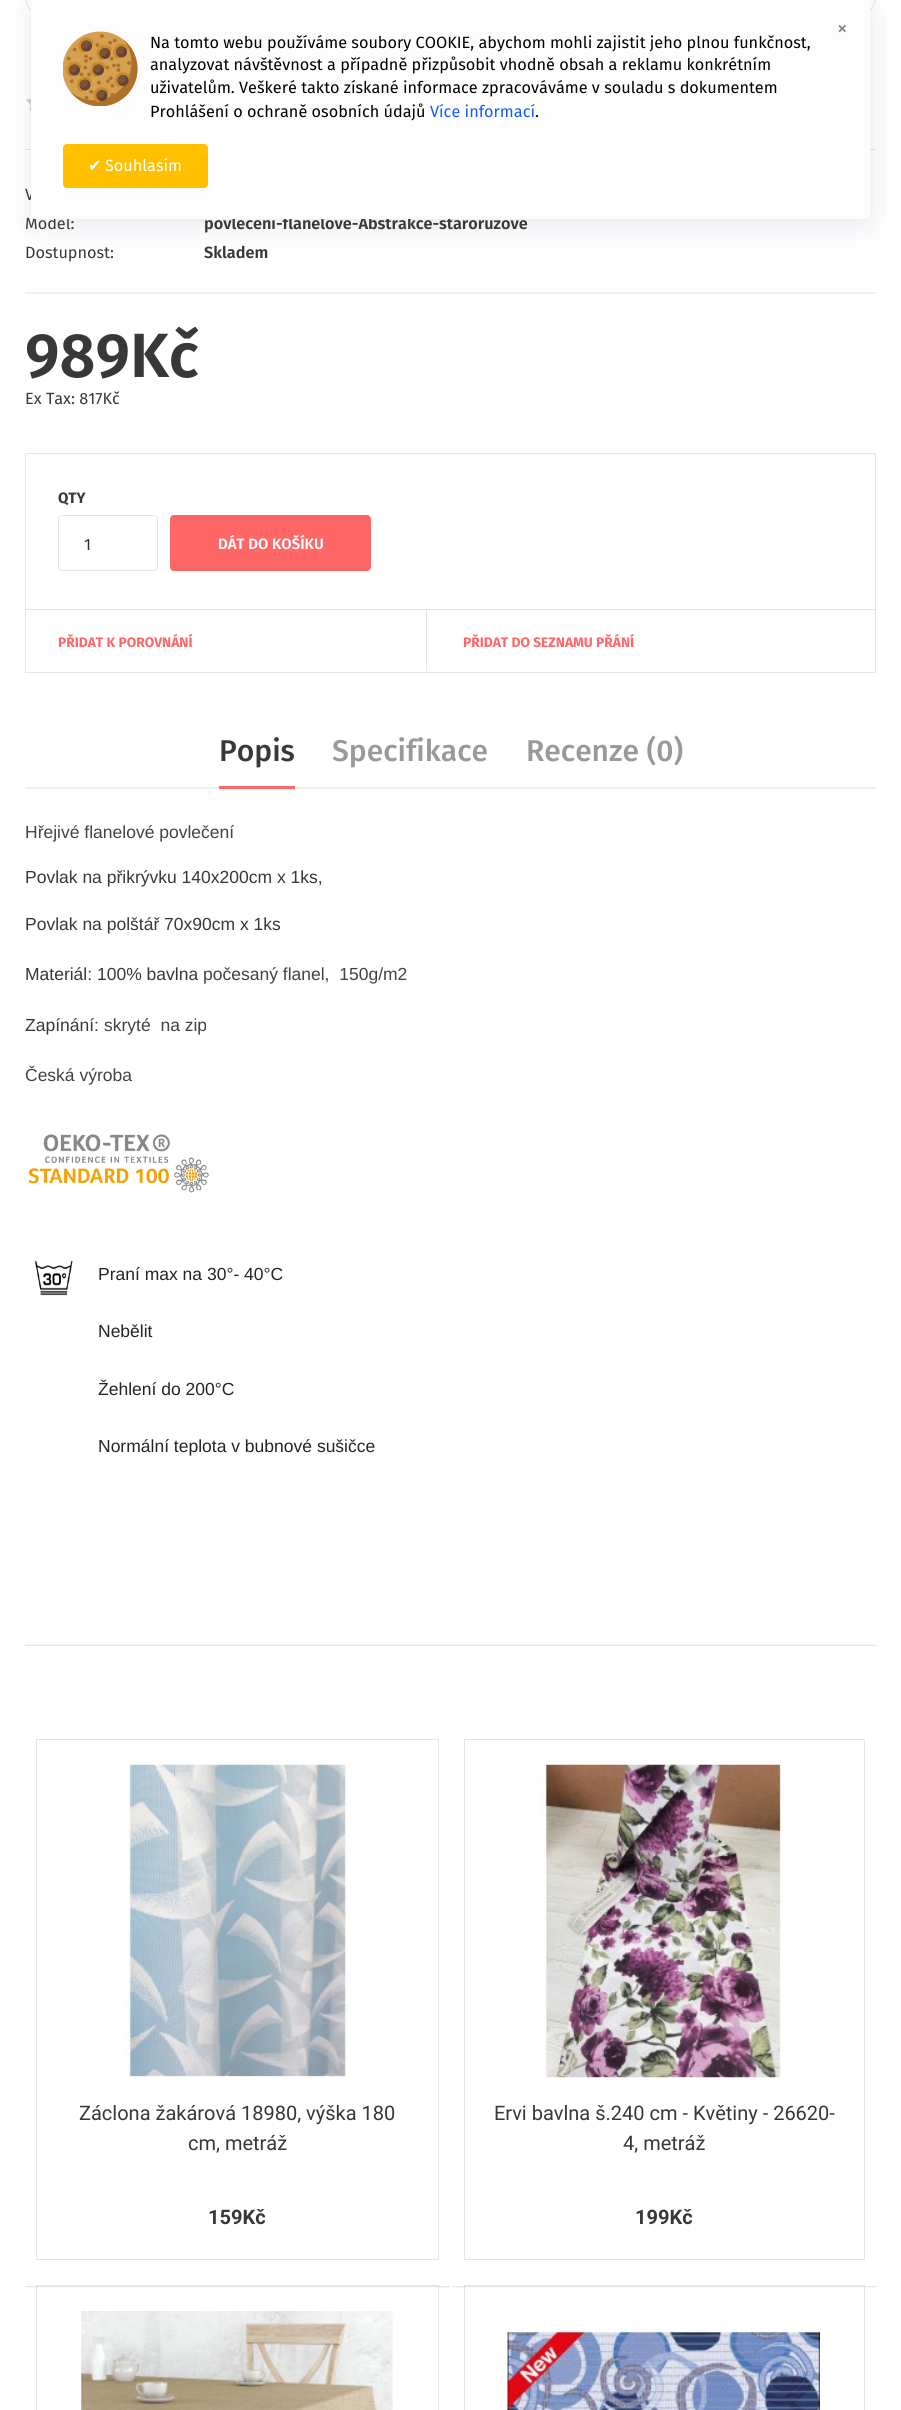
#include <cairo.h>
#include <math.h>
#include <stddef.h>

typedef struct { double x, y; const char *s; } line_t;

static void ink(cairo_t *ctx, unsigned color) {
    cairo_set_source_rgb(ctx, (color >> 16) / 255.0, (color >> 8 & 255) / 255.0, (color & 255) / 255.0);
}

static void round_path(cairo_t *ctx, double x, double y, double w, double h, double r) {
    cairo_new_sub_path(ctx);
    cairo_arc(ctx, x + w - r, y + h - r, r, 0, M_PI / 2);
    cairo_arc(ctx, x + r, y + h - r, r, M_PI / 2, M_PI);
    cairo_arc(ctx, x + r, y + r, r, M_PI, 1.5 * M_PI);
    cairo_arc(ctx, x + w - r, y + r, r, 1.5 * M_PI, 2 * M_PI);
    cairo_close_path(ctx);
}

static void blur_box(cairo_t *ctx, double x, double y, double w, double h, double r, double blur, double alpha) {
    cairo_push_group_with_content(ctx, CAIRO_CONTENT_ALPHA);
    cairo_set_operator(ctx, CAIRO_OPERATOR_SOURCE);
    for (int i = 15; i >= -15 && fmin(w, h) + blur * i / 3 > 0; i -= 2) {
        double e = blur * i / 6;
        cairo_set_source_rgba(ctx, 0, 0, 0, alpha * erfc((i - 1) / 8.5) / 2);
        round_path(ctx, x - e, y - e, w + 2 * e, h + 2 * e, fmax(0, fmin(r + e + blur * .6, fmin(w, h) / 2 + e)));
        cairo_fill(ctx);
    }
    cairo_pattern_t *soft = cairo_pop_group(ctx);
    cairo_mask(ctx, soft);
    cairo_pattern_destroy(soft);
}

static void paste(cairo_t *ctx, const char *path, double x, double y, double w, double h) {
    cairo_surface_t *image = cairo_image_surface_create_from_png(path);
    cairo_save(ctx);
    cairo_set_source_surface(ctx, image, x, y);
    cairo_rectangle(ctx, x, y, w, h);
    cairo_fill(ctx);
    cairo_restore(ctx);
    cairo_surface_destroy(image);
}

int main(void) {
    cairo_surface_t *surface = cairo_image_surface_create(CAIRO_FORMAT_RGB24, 901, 2410);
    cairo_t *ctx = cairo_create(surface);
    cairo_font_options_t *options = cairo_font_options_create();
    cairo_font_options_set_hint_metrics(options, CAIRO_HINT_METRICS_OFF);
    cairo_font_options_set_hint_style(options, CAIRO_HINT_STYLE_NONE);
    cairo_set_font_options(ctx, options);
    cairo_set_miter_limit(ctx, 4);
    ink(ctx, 0xFFFFFF);
    cairo_paint(ctx);
    round_path(ctx, 25.5, -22.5, 43, 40, 21.5);
    ink(ctx, 0xE5E5E5);
    cairo_set_line_width(ctx, 1);
    cairo_stroke(ctx);
    round_path(ctx, 833.5, -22.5, 42, 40, 21);
    cairo_stroke(ctx);
    cairo_rectangle(ctx, 25, 149, 851, 1);
    cairo_fill(ctx);
    paste(ctx, "media/2.png", 26, 99, 5, 12);
    ink(ctx, 0x223865);
    blur_box(ctx, 38, 13, 826, 206, 0, 19, 0.15);
    cairo_select_font_face(ctx, "Fira Sans", CAIRO_FONT_SLANT_NORMAL, CAIRO_FONT_WEIGHT_NORMAL);
    cairo_set_font_size(ctx, 16.25);
    ink(ctx, 0x383838);
    cairo_move_to(ctx, 25, 200);
    cairo_show_text(ctx, "V");
    cairo_move_to(ctx, 25, 229);
    cairo_show_text(ctx, "Model:");
    cairo_select_font_face(ctx, "Fira Sans SemiBold", CAIRO_FONT_SLANT_NORMAL, CAIRO_FONT_WEIGHT_NORMAL);
    cairo_move_to(ctx, 204, 229);
    cairo_show_text(ctx, "povlečení-flanelové-Abstrakce-starorůžové");
    ink(ctx, 0xFDFDFD);
    round_path(ctx, 31, 0, 839, 219, 4);
    cairo_fill(ctx);
    cairo_select_font_face(ctx, "Fira Sans", CAIRO_FONT_SLANT_NORMAL, CAIRO_FONT_WEIGHT_NORMAL);
    cairo_set_font_size(ctx, 21);
    ink(ctx, 0x7F7F7F);
    cairo_move_to(ctx, 837, 35);
    cairo_show_text(ctx, "×");
    paste(ctx, "media/1.png", 63, 31, 75, 75);
    cairo_set_font_size(ctx, 16.25);
    ink(ctx, 0x000000);
    {
        static const line_t items[] = {
            {150, 48, "Na tomto webu používáme soubory COOKIE, abychom mohli zajistit jeho plnou funkčnost,"},
            {150, 70, "analyzovat návštěvnost a případně přizpůsobit vhodně obsah a reklamu konkrétním"},
            {150, 93, "uživatelům. Veškeré takto získané informace zpracováváme v souladu s dokumentem"},
            {150, 117, "Prohlášení o ochraně osobních údajů"},
        };
        for (size_t i = 0; i < sizeof items / sizeof *items; i++) {
            cairo_move_to(ctx, items[i].x, items[i].y);
            cairo_show_text(ctx, items[i].s);
        }
    }
    ink(ctx, 0x115CFA);
    cairo_move_to(ctx, 430, 117);
    cairo_show_text(ctx, "Více informací");
    ink(ctx, 0x000000);
    cairo_move_to(ctx, 535, 117);
    cairo_show_text(ctx, ".");
    ink(ctx, 0xFFC000);
    round_path(ctx, 63, 144, 145, 44, 4);
    cairo_fill(ctx);
    cairo_select_font_face(ctx, "DejaVu Sans", CAIRO_FONT_SLANT_NORMAL, CAIRO_FONT_WEIGHT_NORMAL);
    ink(ctx, 0xFFFFFF);
    cairo_move_to(ctx, 88, 171);
    cairo_show_text(ctx, "✔");
    cairo_select_font_face(ctx, "Fira Sans", CAIRO_FONT_SLANT_NORMAL, CAIRO_FONT_WEIGHT_NORMAL);
    cairo_move_to(ctx, 105, 171);
    cairo_show_text(ctx, "Souhlasím");
    paste(ctx, "media/3.png", 25, 292, 851, 2);
    ink(ctx, 0x383838);
    cairo_move_to(ctx, 25, 258);
    cairo_show_text(ctx, "Dostupnost:");
    cairo_select_font_face(ctx, "Fira Sans SemiBold", CAIRO_FONT_SLANT_NORMAL, CAIRO_FONT_WEIGHT_NORMAL);
    cairo_move_to(ctx, 204, 258);
    cairo_show_text(ctx, "Skladem");
    cairo_set_font_size(ctx, 62.5);
    cairo_move_to(ctx, 25, 377);
    cairo_show_text(ctx, "989Kč");
    cairo_select_font_face(ctx, "Fira Sans", CAIRO_FONT_SLANT_NORMAL, CAIRO_FONT_WEIGHT_NORMAL);
    cairo_set_font_size(ctx, 16.25);
    cairo_move_to(ctx, 25, 404);
    cairo_show_text(ctx, "Ex Tax: 817Kč");
    cairo_rectangle(ctx, 25.5, 453.5, 850, 219);
    ink(ctx, 0xE5E5E5);
    cairo_stroke(ctx);
    cairo_select_font_face(ctx, "Fira Sans", CAIRO_FONT_SLANT_NORMAL, CAIRO_FONT_WEIGHT_BOLD);
    cairo_set_font_size(ctx, 15);
    ink(ctx, 0x383838);
    cairo_move_to(ctx, 58, 503);
    cairo_show_text(ctx, "QTY");
    round_path(ctx, 58.5, 515.5, 99, 55, 3.5);
    ink(ctx, 0xE5E5E5);
    cairo_stroke(ctx);
    cairo_select_font_face(ctx, "Fira Sans", CAIRO_FONT_SLANT_NORMAL, CAIRO_FONT_WEIGHT_NORMAL);
    cairo_set_font_size(ctx, 16.25);
    ink(ctx, 0x3A2828);
    cairo_move_to(ctx, 84, 550);
    cairo_show_text(ctx, "1");
    ink(ctx, 0xFF6767);
    round_path(ctx, 170, 515, 201, 56, 4);
    cairo_fill(ctx);
    cairo_select_font_face(ctx, "Fira Sans SemiBold", CAIRO_FONT_SLANT_NORMAL, CAIRO_FONT_WEIGHT_NORMAL);
    cairo_set_font_size(ctx, 15);
    ink(ctx, 0xFFFFFF);
    cairo_move_to(ctx, 218, 549);
    cairo_show_text(ctx, "DÁT DO KOŠÍKU");
    ink(ctx, 0xE5E5E5);
    cairo_rectangle(ctx, 26, 609, 849, 1);
    cairo_fill(ctx);
    cairo_select_font_face(ctx, "Fira Sans", CAIRO_FONT_SLANT_NORMAL, CAIRO_FONT_WEIGHT_BOLD);
    cairo_set_font_size(ctx, 13.75);
    ink(ctx, 0xFF6767);
    cairo_move_to(ctx, 58, 647);
    cairo_show_text(ctx, "PŘIDAT K POROVNÁNÍ");
    ink(ctx, 0xE5E5E5);
    cairo_rectangle(ctx, 426, 610, 1, 61);
    cairo_fill(ctx);
    ink(ctx, 0xFF6767);
    cairo_move_to(ctx, 463, 647);
    cairo_show_text(ctx, "PŘIDAT DO SEZNAMU PŘÁNÍ");
    cairo_select_font_face(ctx, "Fira Sans Medium", CAIRO_FONT_SLANT_NORMAL, CAIRO_FONT_WEIGHT_NORMAL);
    cairo_set_font_size(ctx, 30);
    ink(ctx, 0x383838);
    cairo_move_to(ctx, 219, 761);
    cairo_show_text(ctx, "Popis");
    paste(ctx, "media/3.png", 25, 787, 851, 2);
    ink(ctx, 0xFF6767);
    cairo_rectangle(ctx, 219, 786, 76, 3);
    cairo_fill(ctx);
    ink(ctx, 0x999999);
    cairo_move_to(ctx, 332, 761);
    cairo_show_text(ctx, "Specifikace");
    cairo_move_to(ctx, 526, 761);
    cairo_show_text(ctx, "Recenze (0)");
    cairo_select_font_face(ctx, "Liberation Sans", CAIRO_FONT_SLANT_NORMAL, CAIRO_FONT_WEIGHT_NORMAL);
    cairo_set_font_size(ctx, 17.5);
    ink(ctx, 0x424242);
    cairo_move_to(ctx, 25, 838);
    cairo_show_text(ctx, "Hřejivé flanelové povlečení");
    ink(ctx, 0x383838);
    {
        static const line_t items[] = {
            {25, 883, "Povlak na přikrývku 140x200cm x 1ks,"},
            {25, 930, "Povlak na polštář 70x90cm x 1ks"},
            {25, 980, "Materiál: 100% bavlna"},
        };
        for (size_t i = 0; i < sizeof items / sizeof *items; i++) {
            cairo_move_to(ctx, items[i].x, items[i].y);
            cairo_show_text(ctx, items[i].s);
        }
    }
    ink(ctx, 0x424242);
    cairo_move_to(ctx, 203, 980);
    cairo_show_text(ctx, "počesaný flanel,  150g/m2");
    ink(ctx, 0x383838);
    cairo_move_to(ctx, 25, 1031);
    cairo_show_text(ctx, "Zapínání:");
    ink(ctx, 0x424242);
    cairo_move_to(ctx, 104, 1031);
    cairo_show_text(ctx, "skryté  na zip");
    cairo_move_to(ctx, 25, 1081);
    cairo_show_text(ctx, "Česká výroba");
    paste(ctx, "media/4.png", 28, 1134, 181, 59);
    paste(ctx, "media/5.png", 35, 1260, 38, 36);
    ink(ctx, 0x212529);
    {
        static const line_t items[] = {
            {98, 1280, "Praní max na 30°- 40°C"},
            {98, 1337, "Nebělit"},
            {98, 1395, "Žehlení do 200°C"},
            {98, 1452, "Normální teplota v bubnové sušičce"},
        };
        for (size_t i = 0; i < sizeof items / sizeof *items; i++) {
            cairo_move_to(ctx, items[i].x, items[i].y);
            cairo_show_text(ctx, items[i].s);
        }
    }
    paste(ctx, "media/6.png", 25, 1644, 852, 2);
    cairo_rectangle(ctx, 36.5, 1739.5, 402, 520);
    ink(ctx, 0xE5E5E5);
    cairo_stroke(ctx);
    paste(ctx, "media/7.png", 122, 1764, 228, 313);
    cairo_select_font_face(ctx, "Roboto", CAIRO_FONT_SLANT_NORMAL, CAIRO_FONT_WEIGHT_NORMAL);
    cairo_set_font_size(ctx, 20);
    ink(ctx, 0x383838);
    cairo_move_to(ctx, 79, 2120);
    cairo_show_text(ctx, "Záclona žakárová 18980, výška 180");
    cairo_move_to(ctx, 188, 2150);
    cairo_show_text(ctx, "cm, metráž");
    cairo_select_font_face(ctx, "Roboto", CAIRO_FONT_SLANT_NORMAL, CAIRO_FONT_WEIGHT_BOLD);
    cairo_move_to(ctx, 208, 2224);
    cairo_show_text(ctx, "159Kč");
    cairo_rectangle(ctx, 464.5, 1739.5, 400, 520);
    ink(ctx, 0xE5E5E5);
    cairo_stroke(ctx);
    paste(ctx, "media/8.png", 539, 1764, 247, 314);
    cairo_select_font_face(ctx, "Roboto", CAIRO_FONT_SLANT_NORMAL, CAIRO_FONT_WEIGHT_NORMAL);
    ink(ctx, 0x383838);
    cairo_move_to(ctx, 494, 2120);
    cairo_show_text(ctx, "Ervi bavlna š.240 cm - Květiny - 26620-");
    cairo_move_to(ctx, 623, 2150);
    cairo_show_text(ctx, "4, metráž");
    cairo_select_font_face(ctx, "Roboto", CAIRO_FONT_SLANT_NORMAL, CAIRO_FONT_WEIGHT_BOLD);
    cairo_move_to(ctx, 635, 2224);
    cairo_show_text(ctx, "199Kč");
    cairo_rectangle(ctx, 36.5, 2285.5, 402, 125);
    ink(ctx, 0xE5E5E5);
    cairo_stroke(ctx);
    paste(ctx, "media/9.png", 25, 2286, 425, 2);
    paste(ctx, "media/10.png", 81, 2311, 312, 99);
    cairo_rectangle(ctx, 464.5, 2285.5, 400, 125);
    cairo_stroke(ctx);
    paste(ctx, "media/11.png", 452, 2286, 425, 2);
    paste(ctx, "media/12.png", 507, 2330, 313, 80);
    cairo_surface_write_to_png(surface, "image.png");
    cairo_font_options_destroy(options);
    cairo_destroy(ctx);
    cairo_surface_destroy(surface);
    return 0;
}
